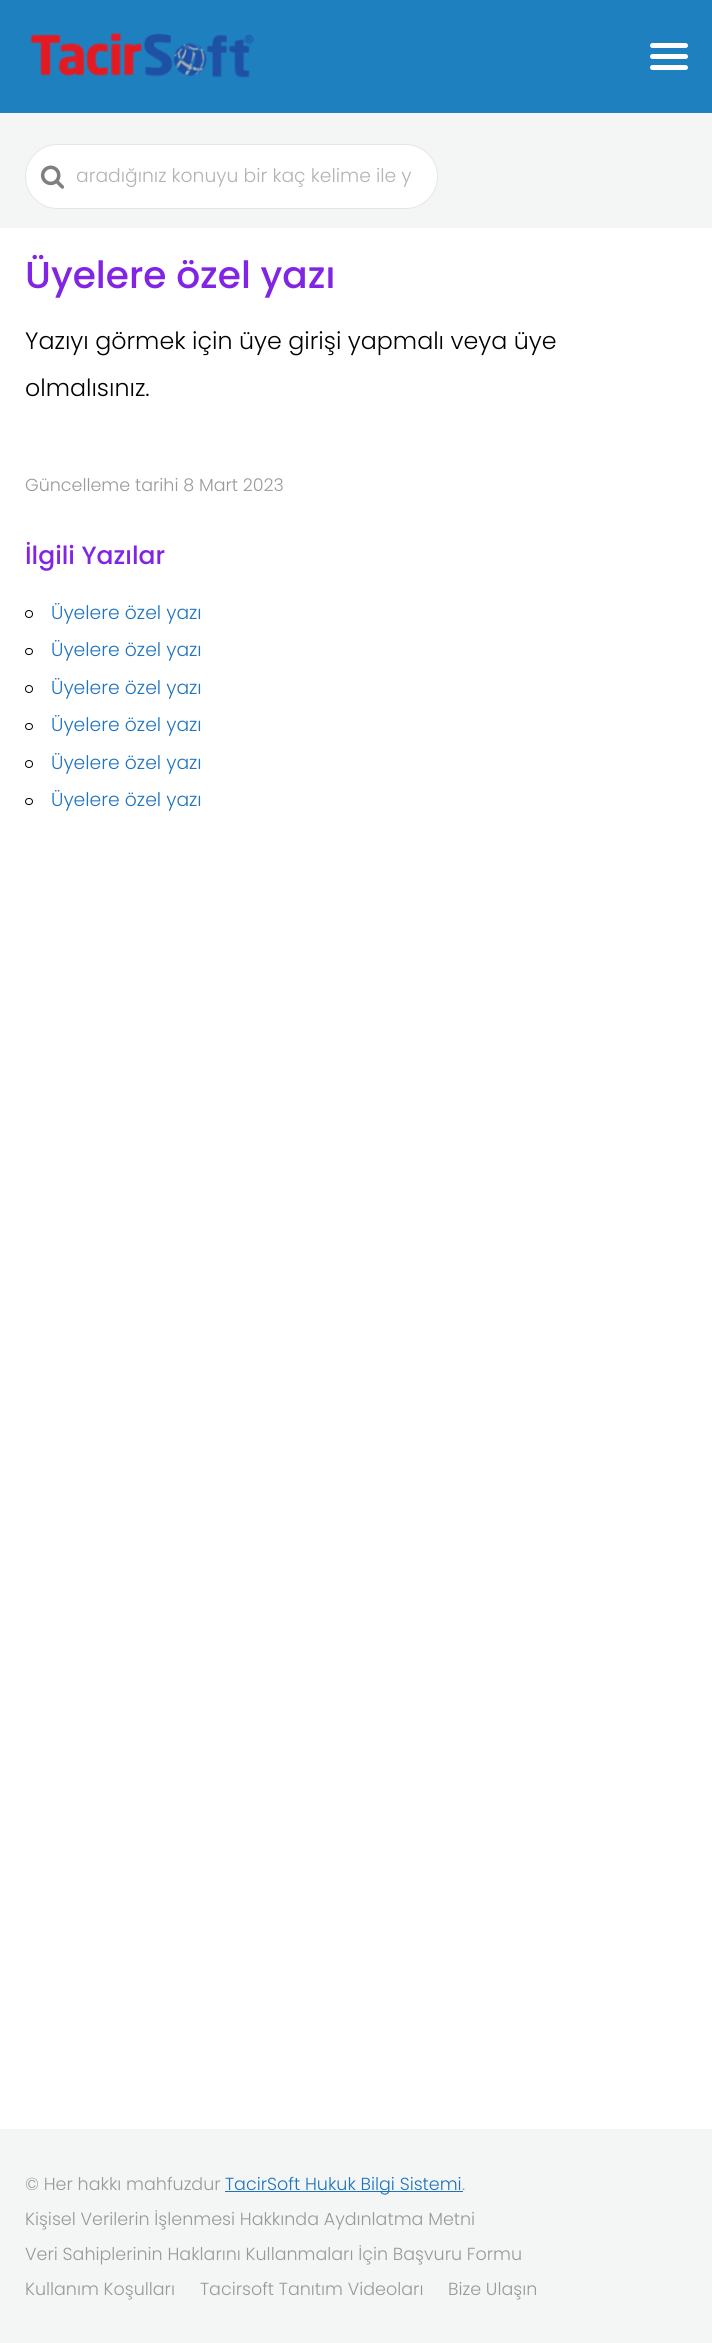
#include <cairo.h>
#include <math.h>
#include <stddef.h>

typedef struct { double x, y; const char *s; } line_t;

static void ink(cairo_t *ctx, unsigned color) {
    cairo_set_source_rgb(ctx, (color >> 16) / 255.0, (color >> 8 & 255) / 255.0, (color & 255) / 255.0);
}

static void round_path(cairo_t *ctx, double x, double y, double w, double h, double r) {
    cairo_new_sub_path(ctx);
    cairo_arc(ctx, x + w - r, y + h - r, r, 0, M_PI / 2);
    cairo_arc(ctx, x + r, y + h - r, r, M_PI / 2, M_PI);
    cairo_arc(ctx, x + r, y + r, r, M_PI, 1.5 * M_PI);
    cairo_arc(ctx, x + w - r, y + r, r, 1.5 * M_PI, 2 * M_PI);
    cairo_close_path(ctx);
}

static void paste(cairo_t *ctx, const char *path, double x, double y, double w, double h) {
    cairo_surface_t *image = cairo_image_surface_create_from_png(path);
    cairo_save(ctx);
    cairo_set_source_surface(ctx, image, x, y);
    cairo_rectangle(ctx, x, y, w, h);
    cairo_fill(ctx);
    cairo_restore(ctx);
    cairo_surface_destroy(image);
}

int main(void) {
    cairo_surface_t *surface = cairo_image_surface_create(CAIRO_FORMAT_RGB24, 712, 2343);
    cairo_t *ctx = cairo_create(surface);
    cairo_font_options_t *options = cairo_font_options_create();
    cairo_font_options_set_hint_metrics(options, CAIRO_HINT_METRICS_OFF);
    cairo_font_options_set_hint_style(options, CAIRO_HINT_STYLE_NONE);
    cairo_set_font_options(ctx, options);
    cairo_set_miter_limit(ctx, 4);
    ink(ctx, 0xFFFFFF);
    cairo_paint(ctx);
    ink(ctx, 0x1F80BF);
    cairo_rectangle(ctx, 0, 0, 712, 113);
    cairo_fill(ctx);
    paste(ctx, "media/1.png", 30, 33, 224, 45);
    ink(ctx, 0xFFFFFF);
    round_path(ctx, 650, 54, 38, 5, 2.5);
    cairo_fill(ctx);
    round_path(ctx, 650, 43, 38, 5, 2.5);
    cairo_fill(ctx);
    round_path(ctx, 650, 65, 38, 5, 2.5);
    cairo_fill(ctx);
    ink(ctx, 0xF4F5F5);
    cairo_rectangle(ctx, 0, 113, 712, 115);
    cairo_fill(ctx);
    ink(ctx, 0xFFFFFF);
    round_path(ctx, 25, 144, 413, 65, 32.5);
    cairo_fill(ctx);
    round_path(ctx, 25.5, 144.5, 412, 64, 32);
    cairo_set_source_rgba(ctx, 0.8, 0.8, 0.8, 0.5);
    cairo_set_line_width(ctx, 1);
    cairo_stroke(ctx);
    paste(ctx, "media/2.png", 40, 165, 24, 24);
    cairo_select_font_face(ctx, "Poppins Light", CAIRO_FONT_SLANT_NORMAL, CAIRO_FONT_WEIGHT_NORMAL);
    cairo_set_font_size(ctx, 18.75);
    ink(ctx, 0xB3B3B3);
    cairo_move_to(ctx, 76, 182);
    cairo_show_text(ctx, "aradığınız konuyu bir kaç kelime ile y");
    cairo_select_font_face(ctx, "Poppins Medium", CAIRO_FONT_SLANT_NORMAL, CAIRO_FONT_WEIGHT_NORMAL);
    cairo_set_font_size(ctx, 37.5);
    ink(ctx, 0x8224E3);
    cairo_move_to(ctx, 25, 288);
    cairo_show_text(ctx, "Üyelere özel yazı");
    cairo_select_font_face(ctx, "Poppins Light", CAIRO_FONT_SLANT_NORMAL, CAIRO_FONT_WEIGHT_NORMAL);
    cairo_set_font_size(ctx, 23.75);
    ink(ctx, 0x000000);
    cairo_move_to(ctx, 25, 349);
    cairo_show_text(ctx, "Yazıyı görmek için üye girişi yapmalı veya üye");
    cairo_move_to(ctx, 25, 396);
    cairo_show_text(ctx, "olmalısınız.");
    cairo_set_font_size(ctx, 17.5);
    ink(ctx, 0x999999);
    cairo_move_to(ctx, 25, 491);
    cairo_show_text(ctx, "Güncelleme tarihi 8 Mart 2023");
    cairo_select_font_face(ctx, "Poppins Medium", CAIRO_FONT_SLANT_NORMAL, CAIRO_FONT_WEIGHT_NORMAL);
    cairo_set_font_size(ctx, 25);
    ink(ctx, 0x8224E3);
    cairo_move_to(ctx, 25, 564);
    cairo_show_text(ctx, "İlgili Yazılar");
    cairo_new_path(ctx);
    cairo_arc(ctx, 29, 614, 3.5, 0, 2 * M_PI);
    ink(ctx, 0x000000);
    cairo_stroke(ctx);
    cairo_select_font_face(ctx, "Poppins Light", CAIRO_FONT_SLANT_NORMAL, CAIRO_FONT_WEIGHT_NORMAL);
    cairo_set_font_size(ctx, 18.75);
    ink(ctx, 0x1E73BE);
    cairo_move_to(ctx, 51, 619);
    cairo_show_text(ctx, "Üyelere özel yazı");
    round_path(ctx, 25.5, 648.5, 7, 6, 3);
    ink(ctx, 0x000000);
    cairo_stroke(ctx);
    ink(ctx, 0x1E73BE);
    cairo_move_to(ctx, 51, 656);
    cairo_show_text(ctx, "Üyelere özel yazı");
    cairo_new_path(ctx);
    cairo_arc(ctx, 29, 689, 3.5, 0, 2 * M_PI);
    ink(ctx, 0x000000);
    cairo_stroke(ctx);
    ink(ctx, 0x1E73BE);
    cairo_move_to(ctx, 51, 694);
    cairo_show_text(ctx, "Üyelere özel yazı");
    round_path(ctx, 25.5, 723.5, 7, 6, 3);
    ink(ctx, 0x000000);
    cairo_stroke(ctx);
    ink(ctx, 0x1E73BE);
    cairo_move_to(ctx, 51, 731);
    cairo_show_text(ctx, "Üyelere özel yazı");
    cairo_new_path(ctx);
    cairo_arc(ctx, 29, 764, 3.5, 0, 2 * M_PI);
    ink(ctx, 0x000000);
    cairo_stroke(ctx);
    ink(ctx, 0x1E73BE);
    cairo_move_to(ctx, 51, 769);
    cairo_show_text(ctx, "Üyelere özel yazı");
    round_path(ctx, 25.5, 798.5, 7, 6, 3);
    ink(ctx, 0x000000);
    cairo_stroke(ctx);
    ink(ctx, 0x1E73BE);
    cairo_move_to(ctx, 51, 806);
    cairo_show_text(ctx, "Üyelere özel yazı");
    ink(ctx, 0xF4F5F5);
    cairo_rectangle(ctx, 0, 2129, 712, 214);
    cairo_fill(ctx);
    cairo_set_font_size(ctx, 17.5);
    ink(ctx, 0x999999);
    cairo_move_to(ctx, 25, 2190);
    cairo_show_text(ctx, "© Her hakkı mahfuzdur");
    ink(ctx, 0x1E73BE);
    cairo_rectangle(ctx, 225, 2191, 238, 1);
    cairo_fill(ctx);
    cairo_move_to(ctx, 225, 2190);
    cairo_show_text(ctx, "TacirSoft Hukuk Bilgi Sistemi");
    ink(ctx, 0x999999);
    {
        static const line_t items[] = {
            {462, 2190, "."},
            {25, 2225, "Kişisel Verilerin İşlenmesi Hakkında Aydınlatma Metni"},
            {25, 2260, "Veri Sahiplerinin Haklarını Kullanmaları İçin Başvuru Formu"},
            {25, 2295, "Kullanım Koşulları"},
            {200, 2295, "Tacirsoft Tanıtım Videoları"},
            {448, 2295, "Bize Ulaşın"},
        };
        for (size_t i = 0; i < sizeof items / sizeof *items; i++) {
            cairo_move_to(ctx, items[i].x, items[i].y);
            cairo_show_text(ctx, items[i].s);
        }
    }
    cairo_surface_write_to_png(surface, "image.png");
    cairo_font_options_destroy(options);
    cairo_destroy(ctx);
    cairo_surface_destroy(surface);
    return 0;
}
